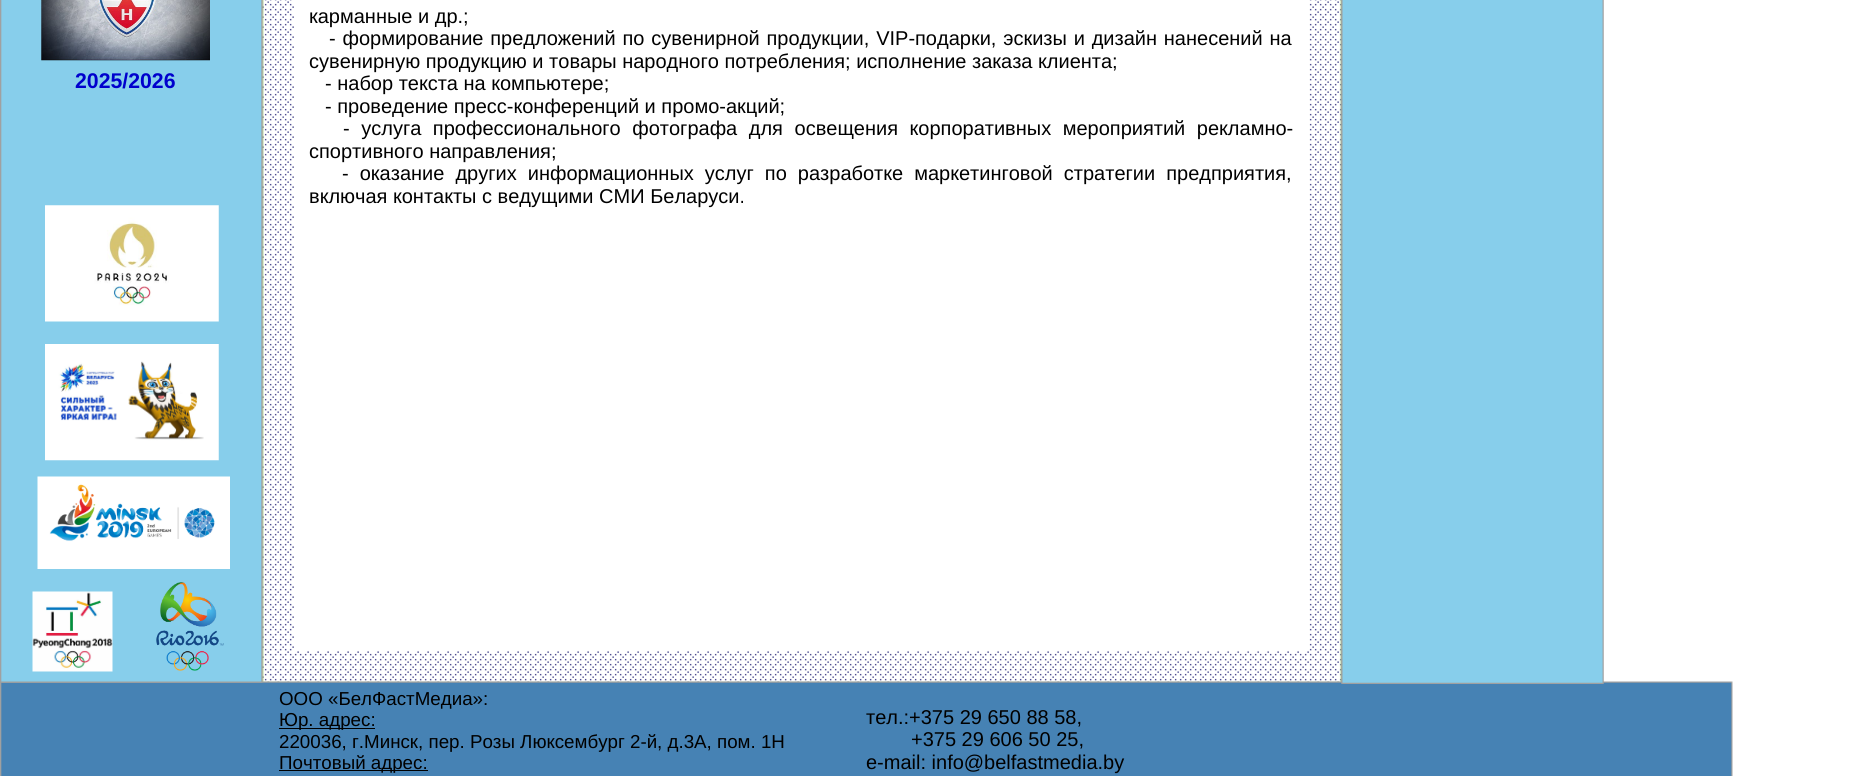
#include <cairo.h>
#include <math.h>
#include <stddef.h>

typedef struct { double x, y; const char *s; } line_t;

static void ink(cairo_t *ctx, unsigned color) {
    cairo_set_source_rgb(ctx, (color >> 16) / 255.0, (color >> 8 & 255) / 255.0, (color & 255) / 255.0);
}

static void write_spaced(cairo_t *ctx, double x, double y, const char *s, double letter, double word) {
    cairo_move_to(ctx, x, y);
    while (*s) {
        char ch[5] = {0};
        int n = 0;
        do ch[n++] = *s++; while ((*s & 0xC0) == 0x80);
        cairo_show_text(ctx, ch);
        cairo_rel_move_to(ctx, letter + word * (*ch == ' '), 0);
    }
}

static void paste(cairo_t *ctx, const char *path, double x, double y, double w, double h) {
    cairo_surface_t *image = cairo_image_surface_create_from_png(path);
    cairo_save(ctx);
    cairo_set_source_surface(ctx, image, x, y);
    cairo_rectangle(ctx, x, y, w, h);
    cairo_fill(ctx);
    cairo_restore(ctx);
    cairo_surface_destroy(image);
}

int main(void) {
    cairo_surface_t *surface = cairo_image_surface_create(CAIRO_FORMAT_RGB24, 1862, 776);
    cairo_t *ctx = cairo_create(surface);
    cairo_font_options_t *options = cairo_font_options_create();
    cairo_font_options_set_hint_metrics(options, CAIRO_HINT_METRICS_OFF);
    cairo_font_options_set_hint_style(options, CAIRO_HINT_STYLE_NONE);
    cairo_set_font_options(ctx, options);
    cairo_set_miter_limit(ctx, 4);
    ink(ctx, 0xFFFFFF);
    cairo_paint(ctx);
    paste(ctx, "media/1.png", 0, 0, 1342, 683);
    paste(ctx, "media/4.png", 262, 0, 1080, 682);
    paste(ctx, "media/11.png", 0, 681, 1733, 95);
    paste(ctx, "media/2.png", 0, 0, 263, 683);
    paste(ctx, "media/3.png", 41, 0, 169, 61);
    paste(ctx, "media/5.png", 1341, 0, 263, 684);
    cairo_select_font_face(ctx, "Liberation Sans", CAIRO_FONT_SLANT_NORMAL, CAIRO_FONT_WEIGHT_BOLD);
    cairo_set_font_size(ctx, 21.25);
    ink(ctx, 0x0000CD);
    cairo_move_to(ctx, 75, 88);
    cairo_show_text(ctx, "2025/2026");
    cairo_select_font_face(ctx, "Liberation Sans", CAIRO_FONT_SLANT_NORMAL, CAIRO_FONT_WEIGHT_NORMAL);
    cairo_set_font_size(ctx, 20);
    ink(ctx, 0x000000);
    cairo_move_to(ctx, 309, 23);
    cairo_show_text(ctx, "карманные и др.;");
    write_spaced(ctx, 329, 45, "- формирование предложений по сувенирной продукции, VIP-подарки, эскизы и дизайн нанесений на", 0, 1.25);
    {
        static const line_t items[] = {
            {309, 68, "сувенирную продукцию и товары народного потребления; исполнение заказа клиента;"},
            {325, 90, "- набор текста на компьютере;"},
            {325, 113, "- проведение пресс-конференций и промо-акций;"},
        };
        for (size_t i = 0; i < sizeof items / sizeof *items; i++) {
            cairo_move_to(ctx, items[i].x, items[i].y);
            cairo_show_text(ctx, items[i].s);
        }
    }
    write_spaced(ctx, 343, 135, "- услуга профессионального фотографа для освещения корпоративных мероприятий рекламно-", 0, 6);
    cairo_move_to(ctx, 309, 158);
    cairo_show_text(ctx, "спортивного направления;");
    write_spaced(ctx, 342, 180, "- оказание других информационных услуг по разработке маркетинговой стратегии предприятия,", 0, 5.5);
    cairo_move_to(ctx, 309, 203);
    cairo_show_text(ctx, "включая контакты с ведущими СМИ Беларуси.");
    paste(ctx, "media/6.png", 45, 205, 174, 117);
    paste(ctx, "media/7.png", 45, 344, 174, 117);
    paste(ctx, "media/8.png", 37, 476, 193, 93);
    paste(ctx, "media/9.png", 32, 591, 81, 81);
    paste(ctx, "media/10.png", 156, 582, 68, 89);
    cairo_set_font_size(ctx, 18.75);
    cairo_move_to(ctx, 279, 705);
    cairo_show_text(ctx, "ООО «БелФастМедиа»:");
    cairo_rectangle(ctx, 279, 728, 96, 1);
    cairo_fill(ctx);
    cairo_move_to(ctx, 279, 726);
    cairo_show_text(ctx, "Юр. адрес:");
    cairo_move_to(ctx, 279, 748);
    cairo_show_text(ctx, "220036, г.Минск, пер. Розы Люксембург 2-й, д.3А, пом. 1Н");
    cairo_rectangle(ctx, 279, 770, 149, 1);
    cairo_fill(ctx);
    cairo_move_to(ctx, 279, 769);
    cairo_show_text(ctx, "Почтовый адрес:");
    cairo_set_font_size(ctx, 20);
    {
        static const line_t items[] = {
            {866, 724, "тел.:+375 29 650 88 58,"},
            {911, 746, "+375 29 606 50 25,"},
            {866, 769, "e-mail: info@belfastmedia.by"},
        };
        for (size_t i = 0; i < sizeof items / sizeof *items; i++) {
            cairo_move_to(ctx, items[i].x, items[i].y);
            cairo_show_text(ctx, items[i].s);
        }
    }
    cairo_surface_write_to_png(surface, "image.png");
    cairo_font_options_destroy(options);
    cairo_destroy(ctx);
    cairo_surface_destroy(surface);
    return 0;
}
